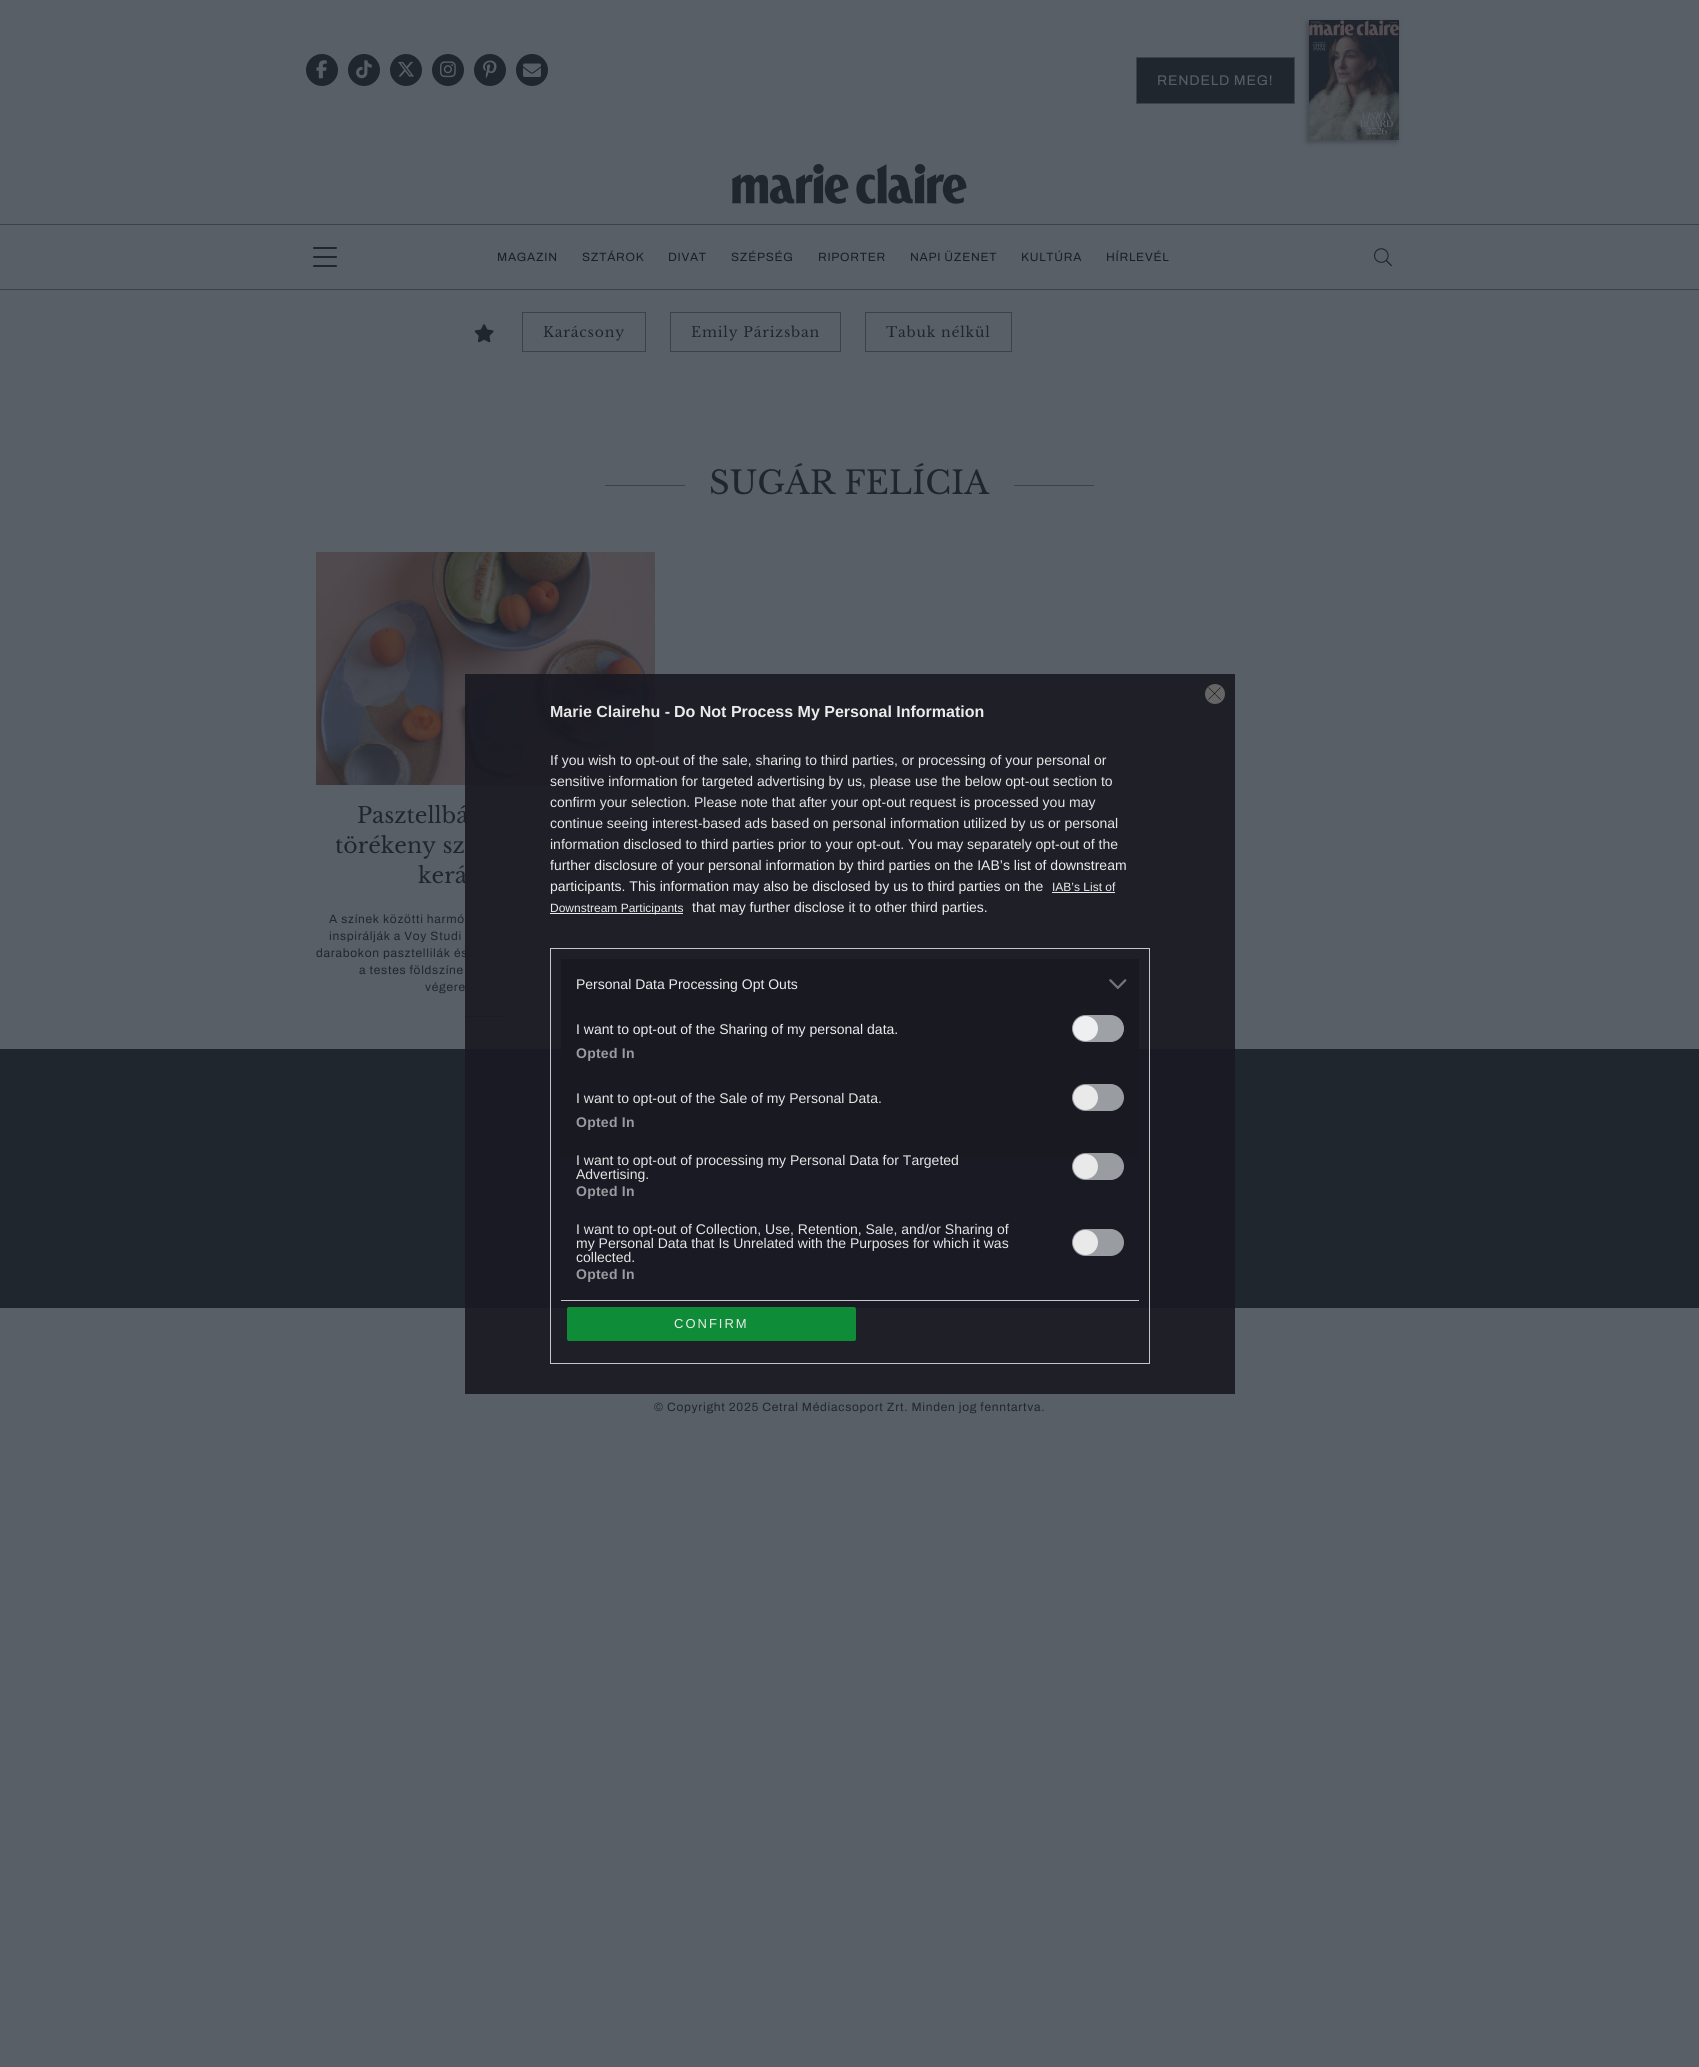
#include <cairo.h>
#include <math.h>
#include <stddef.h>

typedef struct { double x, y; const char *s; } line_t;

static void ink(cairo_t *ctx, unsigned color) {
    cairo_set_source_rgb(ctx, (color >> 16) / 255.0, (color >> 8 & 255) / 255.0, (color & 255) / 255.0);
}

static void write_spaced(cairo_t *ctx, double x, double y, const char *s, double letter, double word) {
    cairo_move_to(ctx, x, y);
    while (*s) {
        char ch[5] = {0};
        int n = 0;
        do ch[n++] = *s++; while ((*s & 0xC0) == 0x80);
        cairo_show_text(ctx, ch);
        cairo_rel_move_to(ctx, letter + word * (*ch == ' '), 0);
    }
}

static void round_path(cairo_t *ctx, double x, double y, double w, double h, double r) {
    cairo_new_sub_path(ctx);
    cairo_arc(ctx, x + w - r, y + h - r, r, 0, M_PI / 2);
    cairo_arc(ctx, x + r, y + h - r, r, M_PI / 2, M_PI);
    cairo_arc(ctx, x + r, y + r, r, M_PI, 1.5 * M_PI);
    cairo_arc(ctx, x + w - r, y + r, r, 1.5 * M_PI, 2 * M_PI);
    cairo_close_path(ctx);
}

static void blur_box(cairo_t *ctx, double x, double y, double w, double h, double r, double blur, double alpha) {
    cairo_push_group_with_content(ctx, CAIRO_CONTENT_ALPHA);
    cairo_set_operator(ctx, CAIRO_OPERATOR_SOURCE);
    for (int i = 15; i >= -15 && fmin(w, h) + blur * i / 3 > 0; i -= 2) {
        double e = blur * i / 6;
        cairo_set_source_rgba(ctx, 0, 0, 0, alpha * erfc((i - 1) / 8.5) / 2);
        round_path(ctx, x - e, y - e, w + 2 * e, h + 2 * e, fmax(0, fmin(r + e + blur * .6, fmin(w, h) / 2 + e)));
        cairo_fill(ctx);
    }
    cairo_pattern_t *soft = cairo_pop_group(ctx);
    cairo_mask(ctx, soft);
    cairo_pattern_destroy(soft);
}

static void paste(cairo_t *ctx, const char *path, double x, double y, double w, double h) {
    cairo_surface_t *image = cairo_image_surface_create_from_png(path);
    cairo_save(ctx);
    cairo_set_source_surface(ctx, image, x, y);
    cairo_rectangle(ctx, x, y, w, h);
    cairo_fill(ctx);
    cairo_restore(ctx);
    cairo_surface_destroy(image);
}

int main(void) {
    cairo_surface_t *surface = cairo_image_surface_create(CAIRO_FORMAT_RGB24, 1699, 2067);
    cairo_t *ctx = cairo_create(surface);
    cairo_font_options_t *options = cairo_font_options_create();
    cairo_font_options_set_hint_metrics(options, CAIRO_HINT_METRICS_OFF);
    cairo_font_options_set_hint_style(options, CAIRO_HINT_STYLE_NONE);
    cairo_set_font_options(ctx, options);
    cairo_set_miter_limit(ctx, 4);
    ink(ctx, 0x595F67);
    cairo_paint(ctx);
    ink(ctx, 0x20262E);
    cairo_arc(ctx, 322, 70, 16, 0, 2 * M_PI);
    cairo_fill(ctx);
    paste(ctx, "media/1.png", 316, 60, 11, 19);
    cairo_arc(ctx, 364, 70, 16, 0, 2 * M_PI);
    cairo_fill(ctx);
    paste(ctx, "media/2.png", 356, 60, 16, 19);
    cairo_arc(ctx, 406, 70, 16, 0, 2 * M_PI);
    cairo_fill(ctx);
    paste(ctx, "media/3.png", 398, 61, 16, 16);
    cairo_arc(ctx, 448, 70, 16, 0, 2 * M_PI);
    cairo_fill(ctx);
    paste(ctx, "media/4.png", 440, 61, 16, 17);
    cairo_arc(ctx, 490, 70, 16, 0, 2 * M_PI);
    cairo_fill(ctx);
    paste(ctx, "media/5.png", 483, 60, 14, 18);
    cairo_arc(ctx, 532, 70, 16, 0, 2 * M_PI);
    cairo_fill(ctx);
    paste(ctx, "media/6.png", 523, 63, 18, 14);
    cairo_rectangle(ctx, 1136.5, 57.5, 158, 46);
    cairo_fill_preserve(ctx);
    ink(ctx, 0x3C424A);
    cairo_set_line_width(ctx, 1);
    cairo_stroke(ctx);
    cairo_select_font_face(ctx, "Archivo", CAIRO_FONT_SLANT_NORMAL, CAIRO_FONT_WEIGHT_NORMAL);
    cairo_set_font_size(ctx, 14);
    ink(ctx, 0x595F67);
    write_spaced(ctx, 1157, 85, "RENDELD MEG!", 0.8, 0);
    ink(ctx, 0x191F27);
    blur_box(ctx, 1307, 22, 90, 120, 0, 2.5, 0.4);
    paste(ctx, "media/7.png", 1309, 20, 90, 120);
    paste(ctx, "media/8.png", 732, 164, 235, 40);
    ink(ctx, 0x3C424A);
    cairo_rectangle(ctx, 0, 224, 1699, 1);
    cairo_fill(ctx);
    ink(ctx, 0x20262E);
    round_path(ctx, 313, 247, 24, 2, 1);
    cairo_fill(ctx);
    round_path(ctx, 313, 256, 24, 2, 1);
    cairo_fill(ctx);
    round_path(ctx, 313, 265, 24, 2, 1);
    cairo_fill(ctx);
    cairo_set_font_size(ctx, 12);
    ink(ctx, 0x191F27);
    {
        static const line_t items[] = {
            {497, 261, "MAGAZIN"},
            {582, 261, "SZTÁROK"},
            {668, 261, "DIVAT"},
            {731, 261, "SZÉPSÉG"},
            {818, 261, "RIPORTER"},
            {910, 261, "NAPI ÜZENET"},
            {1021, 261, "KULTÚRA"},
            {1106, 261, "HÍRLEVÉL"},
        };
        for (size_t i = 0; i < sizeof items / sizeof *items; i++) {
            write_spaced(ctx, items[i].x, items[i].y, items[i].s, 0.72, 0);
        }
    }
    paste(ctx, "media/9.png", 1374, 248, 18, 19);
    ink(ctx, 0x3C424A);
    cairo_rectangle(ctx, 0, 289, 1699, 1);
    cairo_fill(ctx);
    paste(ctx, "media/10.png", 474, 324, 20, 19);
    cairo_rectangle(ctx, 522.5, 312.5, 123, 39);
    cairo_stroke(ctx);
    cairo_select_font_face(ctx, "Libre Baskerville", CAIRO_FONT_SLANT_NORMAL, CAIRO_FONT_WEIGHT_NORMAL);
    cairo_set_font_size(ctx, 14);
    ink(ctx, 0x20262E);
    write_spaced(ctx, 543, 337, "Karácsony", 0.8, 0);
    cairo_rectangle(ctx, 670.5, 312.5, 170, 39);
    ink(ctx, 0x3C424A);
    cairo_stroke(ctx);
    ink(ctx, 0x20262E);
    write_spaced(ctx, 691, 337, "Emily Párizsban", 0.8, 0);
    cairo_rectangle(ctx, 865.5, 312.5, 146, 39);
    ink(ctx, 0x3C424A);
    cairo_stroke(ctx);
    ink(ctx, 0x20262E);
    write_spaced(ctx, 886, 337, "Tabuk nélkül", 0.8, 0);
    ink(ctx, 0x3C424A);
    cairo_rectangle(ctx, 605, 485, 80, 1);
    cairo_fill(ctx);
    cairo_set_font_size(ctx, 32);
    ink(ctx, 0x20262E);
    cairo_move_to(ctx, 709, 494);
    cairo_show_text(ctx, "SUGÁR FELÍCIA");
    ink(ctx, 0x3C424A);
    cairo_rectangle(ctx, 1014, 485, 80, 1);
    cairo_fill(ctx);
    paste(ctx, "media/11.png", 316, 552, 339, 233);
    cairo_set_font_size(ctx, 22);
    ink(ctx, 0x20262E);
    {
        static const line_t items[] = {
            {357, 823, "Pasztellbá"},
            {335, 853, "törékeny sz"},
            {418, 883, "kerá"},
        };
        for (size_t i = 0; i < sizeof items / sizeof *items; i++) {
            cairo_move_to(ctx, items[i].x, items[i].y);
            cairo_show_text(ctx, items[i].s);
        }
    }
    cairo_select_font_face(ctx, "Archivo", CAIRO_FONT_SLANT_NORMAL, CAIRO_FONT_WEIGHT_NORMAL);
    cairo_set_font_size(ctx, 12);
    {
        static const line_t items[] = {
            {329, 923, "A színek közötti harmó"},
            {329, 940, "inspirálják a Voy Studi"},
            {316, 957, "darabokon pasztellilák és"},
            {359, 974, "a testes földszíne"},
            {425, 991, "végere"},
        };
        for (size_t i = 0; i < sizeof items / sizeof *items; i++) {
            write_spaced(ctx, items[i].x, items[i].y, items[i].s, 0.72, 0);
        }
    }
    ink(ctx, 0x3C424A);
    cairo_rectangle(ctx, 465, 1016, 40, 1);
    cairo_fill(ctx);
    ink(ctx, 0x20262E);
    cairo_rectangle(ctx, 0, 1049, 1699, 259);
    cairo_fill(ctx);
    paste(ctx, "media/12.png", 595, 1127, 166, 29);
    ink(ctx, 0x595F67);
    cairo_arc(ctx, 818, 1142, 16, 0, 2 * M_PI);
    cairo_fill(ctx);
    paste(ctx, "media/13.png", 812, 1132, 11, 19);
    cairo_arc(ctx, 864, 1142, 16, 0, 2 * M_PI);
    cairo_fill(ctx);
    paste(ctx, "media/14.png", 856, 1132, 16, 19);
    cairo_arc(ctx, 910, 1142, 16, 0, 2 * M_PI);
    cairo_fill(ctx);
    paste(ctx, "media/15.png", 902, 1133, 16, 16);
    cairo_arc(ctx, 955, 1142, 16, 0, 2 * M_PI);
    cairo_fill(ctx);
    paste(ctx, "media/16.png", 948, 1133, 16, 17);
    cairo_arc(ctx, 1001, 1142, 16, 0, 2 * M_PI);
    cairo_fill(ctx);
    paste(ctx, "media/17.png", 994, 1132, 14, 18);
    cairo_arc(ctx, 1047, 1141, 16, 0, 2 * M_PI);
    cairo_fill(ctx);
    paste(ctx, "media/18.png", 1038, 1134, 18, 14);
    ink(ctx, 0x20262E);
    write_spaced(ctx, 654, 1411, "© Copyright 2025 Cetral Médiacsoport Zrt. Minden jog fenntartva.", 0.72, 0);
    cairo_set_source_rgba(ctx, 0.098, 0.098, 0.133, 0.9);
    cairo_rectangle(ctx, 465, 674, 770, 720);
    cairo_fill(ctx);
    ink(ctx, 0x656566);
    cairo_arc(ctx, 1215, 694, 10, 0, 2 * M_PI);
    cairo_fill(ctx);
    cairo_new_path(ctx);
    cairo_move_to(ctx, 1208.5, 687.5);
    cairo_line_to(ctx, 1220.5, 699.5);
    cairo_move_to(ctx, 1220.5, 687.5);
    cairo_line_to(ctx, 1208.5, 699.5);
    ink(ctx, 0x09090A);
    cairo_set_line_width(ctx, 0.5);
    cairo_set_line_cap(ctx, CAIRO_LINE_CAP_ROUND);
    cairo_set_line_join(ctx, CAIRO_LINE_JOIN_ROUND);
    cairo_stroke(ctx);
    cairo_select_font_face(ctx, "Liberation Sans", CAIRO_FONT_SLANT_NORMAL, CAIRO_FONT_WEIGHT_BOLD);
    cairo_set_font_size(ctx, 16);
    ink(ctx, 0xE5E5E6);
    cairo_move_to(ctx, 550, 717);
    cairo_show_text(ctx, "Marie Clairehu -");
    ink(ctx, 0xEBEBEC);
    cairo_move_to(ctx, 674, 717);
    cairo_show_text(ctx, "Do Not Process My Personal Information");
    cairo_select_font_face(ctx, "Liberation Sans", CAIRO_FONT_SLANT_NORMAL, CAIRO_FONT_WEIGHT_NORMAL);
    cairo_set_font_size(ctx, 14);
    ink(ctx, 0xE5E5E6);
    {
        static const line_t items[] = {
            {550, 765, "If you wish to opt-out of the sale, sharing to third parties, or processing of your personal or"},
            {550, 786, "sensitive information for targeted advertising by us, please use the below opt-out section to"},
            {550, 807, "confirm your selection. Please note that after your opt-out request is processed you may"},
            {550, 828, "continue seeing interest-based ads based on personal information utilized by us or personal"},
            {550, 849, "information disclosed to third parties prior to your opt-out. You may separately opt-out of the"},
        };
        for (size_t i = 0; i < sizeof items / sizeof *items; i++) {
            cairo_move_to(ctx, items[i].x, items[i].y);
            cairo_show_text(ctx, items[i].s);
        }
    }
    ink(ctx, 0xEBEBEC);
    cairo_move_to(ctx, 550, 870);
    cairo_show_text(ctx, "further disclosure of your personal information by third parties on the IAB’s list of downstream");
    cairo_move_to(ctx, 550, 891);
    cairo_show_text(ctx, "participants. This information may also be disclosed by us to third parties on the");
    cairo_set_font_size(ctx, 12);
    cairo_move_to(ctx, 1052, 891);
    cairo_show_text(ctx, "IAB’s List of");
    cairo_rectangle(ctx, 1052, 892, 63, 1);
    cairo_fill(ctx);
    cairo_rectangle(ctx, 550, 913, 133, 1);
    cairo_fill(ctx);
    cairo_move_to(ctx, 550, 912);
    cairo_show_text(ctx, "Downstream Participants");
    cairo_set_font_size(ctx, 14);
    cairo_move_to(ctx, 692, 912);
    cairo_show_text(ctx, "that may further disclose it to other third parties.");
    cairo_rectangle(ctx, 550.5, 948.5, 599, 415);
    cairo_set_source_rgba(ctx, 0.847, 0.847, 0.847, 0.9);
    cairo_set_line_width(ctx, 1);
    cairo_set_line_cap(ctx, CAIRO_LINE_CAP_BUTT);
    cairo_set_line_join(ctx, CAIRO_LINE_JOIN_MITER);
    cairo_stroke(ctx);
    cairo_set_source_rgba(ctx, 0.098, 0.098, 0.133, 0.9);
    cairo_rectangle(ctx, 561, 959, 578, 199);
    cairo_fill(ctx);
    ink(ctx, 0xC6C6C7);
    cairo_rectangle(ctx, 561, 1300, 578, 1);
    cairo_fill(ctx);
    ink(ctx, 0xEBEBEC);
    cairo_move_to(ctx, 576, 989);
    cairo_show_text(ctx, "Personal Data Processing Opt Outs");
    paste(ctx, "media/19.png", 1109, 979, 18, 10);
    cairo_move_to(ctx, 576, 1034);
    cairo_show_text(ctx, "I want to opt-out of the Sharing of my personal data.");
    ink(ctx, 0x9EA2A7);
    round_path(ctx, 1072.5, 1015.5, 51, 26, 13);
    cairo_fill_preserve(ctx);
    cairo_stroke(ctx);
    ink(ctx, 0xEEEFF0);
    cairo_arc(ctx, 1085.5, 1028.5, 12.5, 0, 2 * M_PI);
    cairo_fill(ctx);
    cairo_select_font_face(ctx, "Liberation Sans", CAIRO_FONT_SLANT_NORMAL, CAIRO_FONT_WEIGHT_BOLD);
    ink(ctx, 0x989BA0);
    write_spaced(ctx, 576, 1058, "Opted In", 0.25, 0);
    cairo_select_font_face(ctx, "Liberation Sans", CAIRO_FONT_SLANT_NORMAL, CAIRO_FONT_WEIGHT_NORMAL);
    ink(ctx, 0xE5E5E6);
    cairo_move_to(ctx, 576, 1103);
    cairo_show_text(ctx, "I want to opt-out of the Sale of my Personal Data.");
    ink(ctx, 0x999CA1);
    round_path(ctx, 1072.5, 1084.5, 51, 26, 13);
    cairo_fill_preserve(ctx);
    cairo_stroke(ctx);
    ink(ctx, 0xE9E9EA);
    cairo_arc(ctx, 1085.5, 1097.5, 12.5, 0, 2 * M_PI);
    cairo_fill(ctx);
    cairo_select_font_face(ctx, "Liberation Sans", CAIRO_FONT_SLANT_NORMAL, CAIRO_FONT_WEIGHT_BOLD);
    ink(ctx, 0x989BA0);
    write_spaced(ctx, 576, 1127, "Opted In", 0.25, 0);
    cairo_select_font_face(ctx, "Liberation Sans", CAIRO_FONT_SLANT_NORMAL, CAIRO_FONT_WEIGHT_NORMAL);
    ink(ctx, 0xE5E5E6);
    cairo_move_to(ctx, 576, 1165);
    cairo_show_text(ctx, "I want to opt-out of processing my Personal Data for Targeted");
    cairo_move_to(ctx, 576, 1179);
    cairo_show_text(ctx, "Advertising.");
    ink(ctx, 0x999CA1);
    round_path(ctx, 1072.5, 1153.5, 51, 26, 13);
    cairo_fill_preserve(ctx);
    cairo_stroke(ctx);
    ink(ctx, 0xE9E9EA);
    cairo_arc(ctx, 1085.5, 1166.5, 12.5, 0, 2 * M_PI);
    cairo_fill(ctx);
    cairo_select_font_face(ctx, "Liberation Sans", CAIRO_FONT_SLANT_NORMAL, CAIRO_FONT_WEIGHT_BOLD);
    ink(ctx, 0x989BA0);
    write_spaced(ctx, 576, 1196, "Opted In", 0.25, 0);
    cairo_select_font_face(ctx, "Liberation Sans", CAIRO_FONT_SLANT_NORMAL, CAIRO_FONT_WEIGHT_NORMAL);
    ink(ctx, 0xE5E5E6);
    {
        static const line_t items[] = {
            {576, 1234, "I want to opt-out of Collection, Use, Retention, Sale, and/or Sharing of"},
            {576, 1248, "my Personal Data that Is Unrelated with the Purposes for which it was"},
            {576, 1262, "collected."},
        };
        for (size_t i = 0; i < sizeof items / sizeof *items; i++) {
            cairo_move_to(ctx, items[i].x, items[i].y);
            cairo_show_text(ctx, items[i].s);
        }
    }
    ink(ctx, 0x999CA1);
    round_path(ctx, 1072.5, 1229.5, 51, 26, 13);
    cairo_fill_preserve(ctx);
    cairo_stroke(ctx);
    ink(ctx, 0xE9E9EA);
    cairo_arc(ctx, 1085.5, 1242.5, 12.5, 0, 2 * M_PI);
    cairo_fill(ctx);
    cairo_select_font_face(ctx, "Liberation Sans", CAIRO_FONT_SLANT_NORMAL, CAIRO_FONT_WEIGHT_BOLD);
    ink(ctx, 0x989BA0);
    write_spaced(ctx, 576, 1279, "Opted In", 0.25, 0);
    cairo_set_source_rgba(ctx, 0.055, 0.596, 0.224, 0.9);
    round_path(ctx, 567, 1307, 289, 34, 2);
    cairo_fill(ctx);
    cairo_select_font_face(ctx, "Liberation Sans", CAIRO_FONT_SLANT_NORMAL, CAIRO_FONT_WEIGHT_NORMAL);
    cairo_set_font_size(ctx, 13);
    ink(ctx, 0xEBEBEC);
    write_spaced(ctx, 674, 1328, "CONFIRM", 2, 0);
    cairo_surface_write_to_png(surface, "image.png");
    cairo_font_options_destroy(options);
    cairo_destroy(ctx);
    cairo_surface_destroy(surface);
    return 0;
}
